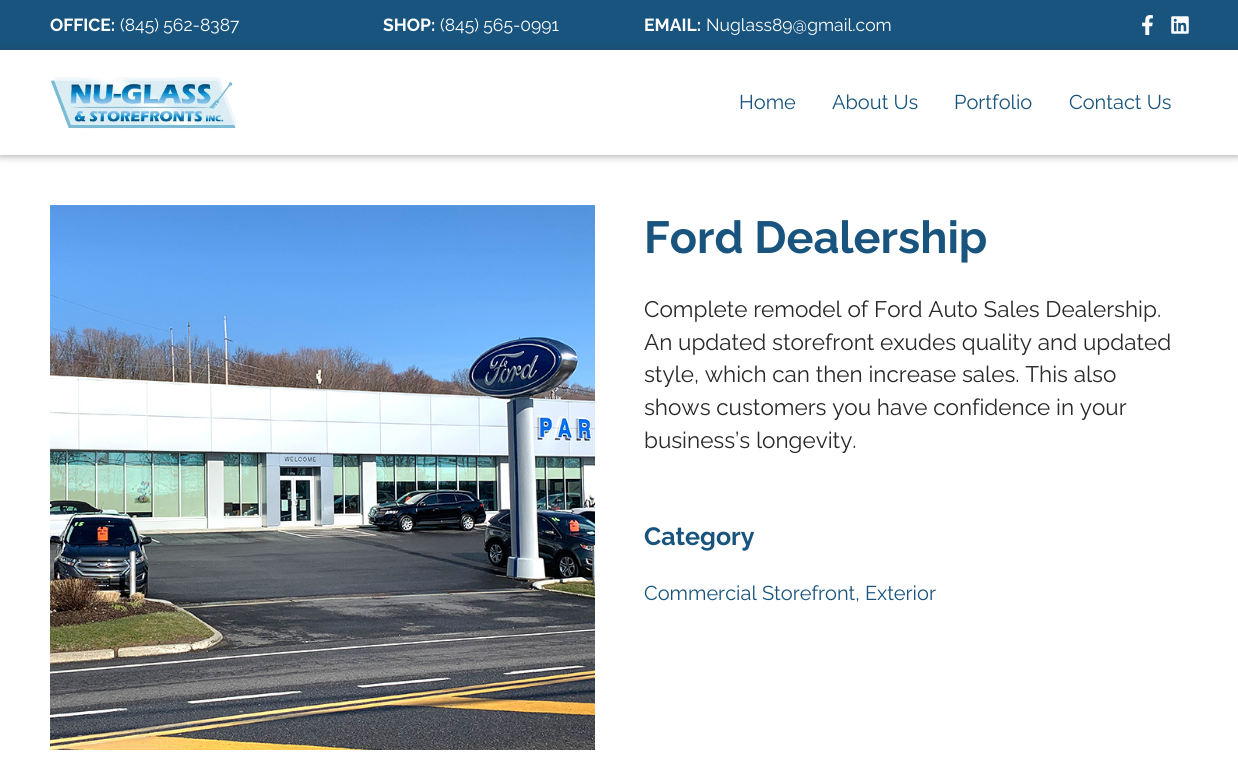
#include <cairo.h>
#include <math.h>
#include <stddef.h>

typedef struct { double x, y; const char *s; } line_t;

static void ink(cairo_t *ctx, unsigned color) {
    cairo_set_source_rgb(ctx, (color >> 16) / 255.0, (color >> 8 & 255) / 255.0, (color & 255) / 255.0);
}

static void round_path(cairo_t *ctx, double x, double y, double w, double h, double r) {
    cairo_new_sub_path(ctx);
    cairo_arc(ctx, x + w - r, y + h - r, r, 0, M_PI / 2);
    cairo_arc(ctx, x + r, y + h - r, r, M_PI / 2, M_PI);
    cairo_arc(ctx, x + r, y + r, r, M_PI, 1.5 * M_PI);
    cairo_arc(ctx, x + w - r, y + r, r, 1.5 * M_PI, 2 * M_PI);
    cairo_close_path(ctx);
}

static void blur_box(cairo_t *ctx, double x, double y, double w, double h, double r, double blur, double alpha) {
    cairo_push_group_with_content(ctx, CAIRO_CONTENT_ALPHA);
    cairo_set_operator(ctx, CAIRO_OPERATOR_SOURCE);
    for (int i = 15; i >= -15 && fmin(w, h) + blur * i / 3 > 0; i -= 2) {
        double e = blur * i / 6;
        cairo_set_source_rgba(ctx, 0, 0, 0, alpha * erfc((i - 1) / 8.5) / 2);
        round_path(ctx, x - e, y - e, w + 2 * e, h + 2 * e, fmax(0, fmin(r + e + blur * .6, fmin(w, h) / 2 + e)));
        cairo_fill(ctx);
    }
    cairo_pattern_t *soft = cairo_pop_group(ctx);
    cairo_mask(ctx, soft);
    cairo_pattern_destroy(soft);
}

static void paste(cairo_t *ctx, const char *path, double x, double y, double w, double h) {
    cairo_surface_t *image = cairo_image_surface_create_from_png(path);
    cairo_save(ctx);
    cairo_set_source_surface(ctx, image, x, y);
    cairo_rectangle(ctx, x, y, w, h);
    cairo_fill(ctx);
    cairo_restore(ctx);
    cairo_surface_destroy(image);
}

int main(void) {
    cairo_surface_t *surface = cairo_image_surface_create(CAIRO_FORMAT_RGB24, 1238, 779);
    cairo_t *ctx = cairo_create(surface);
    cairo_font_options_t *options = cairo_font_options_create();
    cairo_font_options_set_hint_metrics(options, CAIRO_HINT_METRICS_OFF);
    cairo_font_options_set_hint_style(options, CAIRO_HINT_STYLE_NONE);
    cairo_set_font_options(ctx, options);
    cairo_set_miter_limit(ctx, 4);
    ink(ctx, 0xFFFFFF);
    cairo_paint(ctx);
    ink(ctx, 0x18547D);
    cairo_rectangle(ctx, 0, 0, 1238, 50);
    cairo_fill(ctx);
    cairo_select_font_face(ctx, "Raleway", CAIRO_FONT_SLANT_NORMAL, CAIRO_FONT_WEIGHT_BOLD);
    cairo_set_font_size(ctx, 17.5);
    ink(ctx, 0xFFFFFF);
    cairo_move_to(ctx, 50, 31);
    cairo_show_text(ctx, "OFFICE:");
    cairo_select_font_face(ctx, "Raleway", CAIRO_FONT_SLANT_NORMAL, CAIRO_FONT_WEIGHT_NORMAL);
    cairo_move_to(ctx, 120, 31);
    cairo_show_text(ctx, "(845) 562-8387");
    cairo_select_font_face(ctx, "Raleway", CAIRO_FONT_SLANT_NORMAL, CAIRO_FONT_WEIGHT_BOLD);
    cairo_move_to(ctx, 383, 31);
    cairo_show_text(ctx, "SHOP:");
    cairo_select_font_face(ctx, "Raleway", CAIRO_FONT_SLANT_NORMAL, CAIRO_FONT_WEIGHT_NORMAL);
    cairo_move_to(ctx, 440, 31);
    cairo_show_text(ctx, "(845) 565-0991");
    cairo_select_font_face(ctx, "Raleway", CAIRO_FONT_SLANT_NORMAL, CAIRO_FONT_WEIGHT_BOLD);
    cairo_move_to(ctx, 644, 31);
    cairo_show_text(ctx, "EMAIL:");
    cairo_select_font_face(ctx, "Raleway", CAIRO_FONT_SLANT_NORMAL, CAIRO_FONT_WEIGHT_NORMAL);
    cairo_move_to(ctx, 706, 31);
    cairo_show_text(ctx, "Nuglass89@gmail.com");
    paste(ctx, "media/1.png", 1142, 15, 11, 20);
    paste(ctx, "media/2.png", 1171, 16, 18, 18);
    ink(ctx, 0x292929);
    blur_box(ctx, 0, 51, 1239, 105, 0, 4, 0.4);
    ink(ctx, 0xFFFFFF);
    cairo_rectangle(ctx, 0, 50, 1238, 105);
    cairo_fill(ctx);
    paste(ctx, "media/3.png", 50, 77, 188, 52);
    cairo_set_font_size(ctx, 20);
    ink(ctx, 0x18547D);
    {
        static const line_t items[] = {
            {739, 109, "Home"},
            {832, 109, "About Us"},
            {954, 109, "Portfolio"},
            {1069, 109, "Contact Us"},
        };
        for (size_t i = 0; i < sizeof items / sizeof *items; i++) {
            cairo_move_to(ctx, items[i].x, items[i].y);
            cairo_show_text(ctx, items[i].s);
        }
    }
    paste(ctx, "media/4.png", 50, 205, 545, 545);
    cairo_select_font_face(ctx, "Raleway", CAIRO_FONT_SLANT_NORMAL, CAIRO_FONT_WEIGHT_BOLD);
    cairo_set_font_size(ctx, 45);
    cairo_move_to(ctx, 644, 253);
    cairo_show_text(ctx, "Ford Dealership");
    cairo_select_font_face(ctx, "Raleway", CAIRO_FONT_SLANT_NORMAL, CAIRO_FONT_WEIGHT_NORMAL);
    cairo_set_font_size(ctx, 22.5);
    ink(ctx, 0x292929);
    {
        static const line_t items[] = {
            {644, 317, "Complete remodel of Ford Auto Sales Dealership."},
            {644, 350, "An updated storefront exudes quality and updated"},
            {644, 382, "style, which can then increase sales. This also"},
            {644, 415, "shows customers you have confidence in your"},
            {644, 448, "business’s longevity."},
        };
        for (size_t i = 0; i < sizeof items / sizeof *items; i++) {
            cairo_move_to(ctx, items[i].x, items[i].y);
            cairo_show_text(ctx, items[i].s);
        }
    }
    cairo_select_font_face(ctx, "Raleway", CAIRO_FONT_SLANT_NORMAL, CAIRO_FONT_WEIGHT_BOLD);
    cairo_set_font_size(ctx, 25);
    ink(ctx, 0x18547D);
    cairo_move_to(ctx, 644, 545);
    cairo_show_text(ctx, "Category");
    cairo_select_font_face(ctx, "Raleway", CAIRO_FONT_SLANT_NORMAL, CAIRO_FONT_WEIGHT_NORMAL);
    cairo_set_font_size(ctx, 20);
    cairo_move_to(ctx, 644, 600);
    cairo_show_text(ctx, "Commercial Storefront, Exterior");
    cairo_surface_write_to_png(surface, "image.png");
    cairo_font_options_destroy(options);
    cairo_destroy(ctx);
    cairo_surface_destroy(surface);
    return 0;
}
